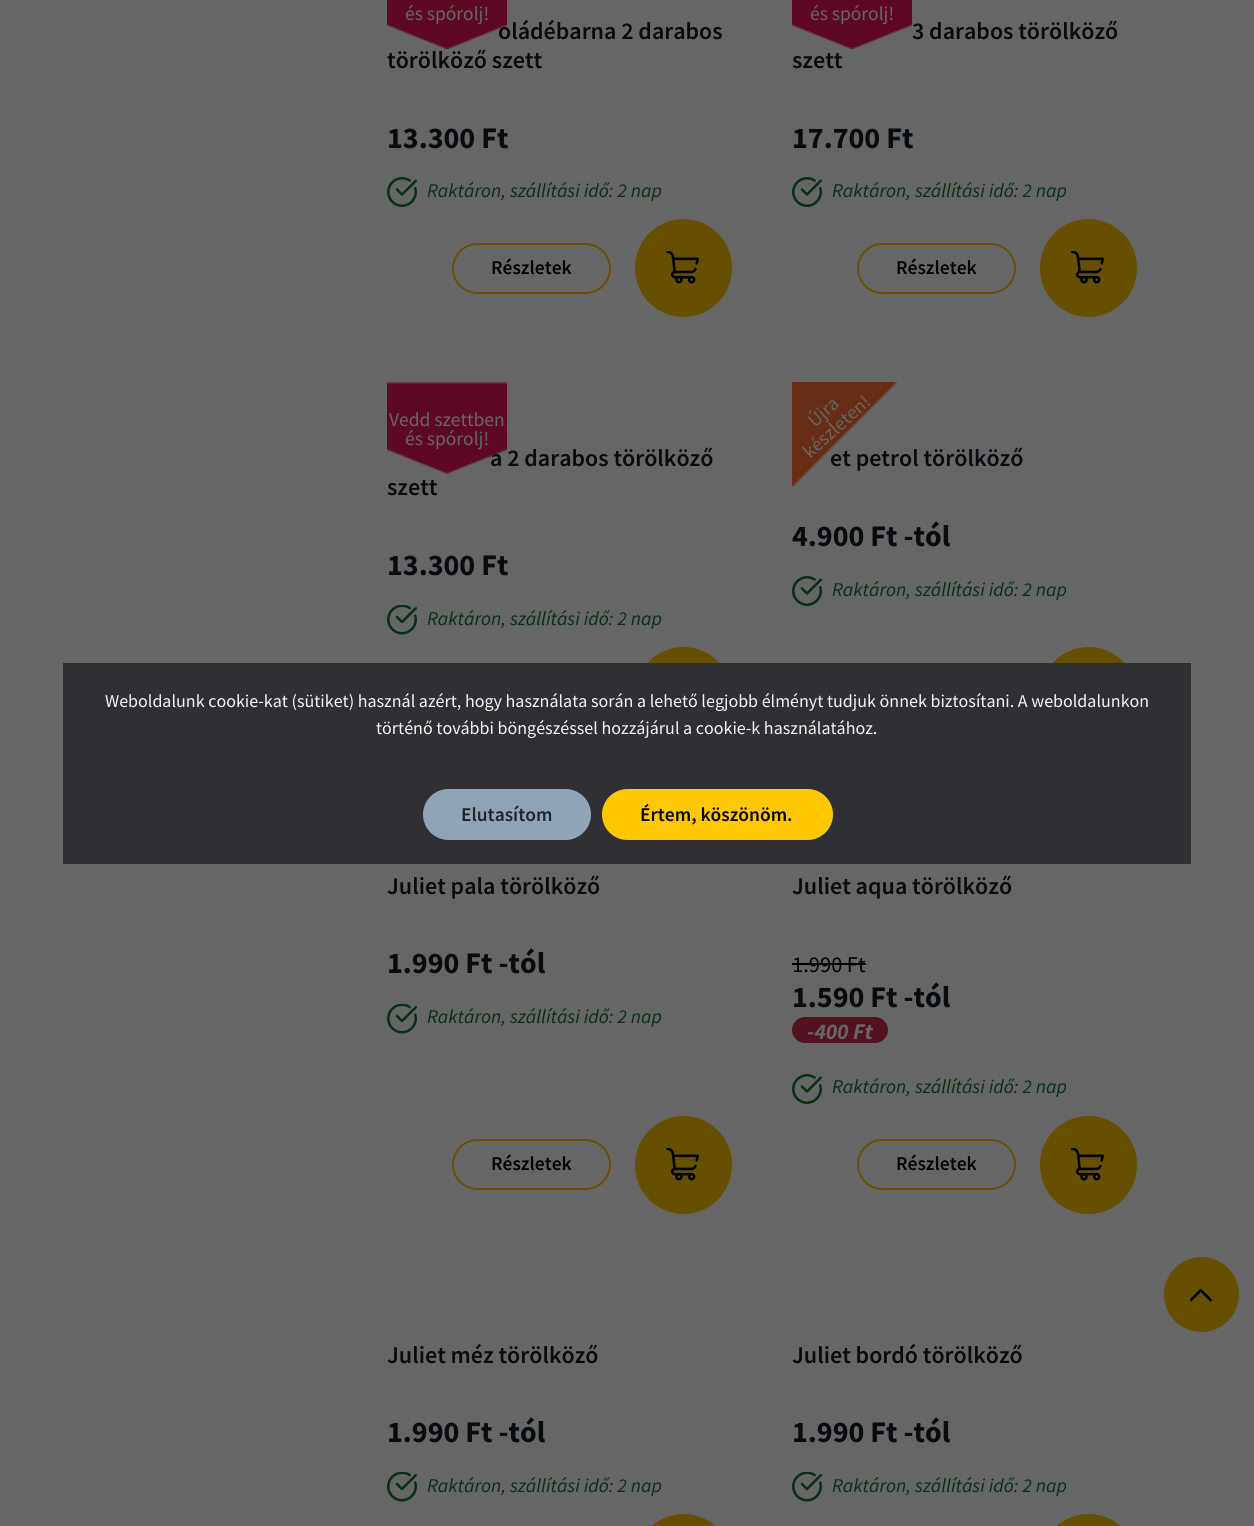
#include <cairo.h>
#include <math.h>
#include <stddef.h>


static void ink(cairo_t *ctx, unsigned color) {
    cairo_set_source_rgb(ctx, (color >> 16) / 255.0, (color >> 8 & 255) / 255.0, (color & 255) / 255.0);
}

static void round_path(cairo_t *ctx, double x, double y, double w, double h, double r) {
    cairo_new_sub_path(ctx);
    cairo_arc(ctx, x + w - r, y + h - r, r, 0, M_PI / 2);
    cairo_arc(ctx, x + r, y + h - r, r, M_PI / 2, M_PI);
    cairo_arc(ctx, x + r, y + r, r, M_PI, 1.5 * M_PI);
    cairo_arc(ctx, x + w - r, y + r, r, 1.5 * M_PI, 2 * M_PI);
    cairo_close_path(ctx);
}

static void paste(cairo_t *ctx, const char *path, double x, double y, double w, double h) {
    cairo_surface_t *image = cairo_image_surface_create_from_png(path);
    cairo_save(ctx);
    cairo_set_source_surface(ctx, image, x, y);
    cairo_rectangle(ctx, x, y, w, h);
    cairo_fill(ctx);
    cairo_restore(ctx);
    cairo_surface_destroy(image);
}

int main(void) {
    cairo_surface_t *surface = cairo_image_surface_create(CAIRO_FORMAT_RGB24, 1254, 1526);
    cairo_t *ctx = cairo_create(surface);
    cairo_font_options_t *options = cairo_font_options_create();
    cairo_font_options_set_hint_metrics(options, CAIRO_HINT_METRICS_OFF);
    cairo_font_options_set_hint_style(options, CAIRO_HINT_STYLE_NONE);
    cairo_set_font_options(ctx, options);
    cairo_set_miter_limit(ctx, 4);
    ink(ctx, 0x666666);
    cairo_paint(ctx);
    cairo_select_font_face(ctx, "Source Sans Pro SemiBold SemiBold", CAIRO_FONT_SLANT_NORMAL, CAIRO_FONT_WEIGHT_NORMAL);
    cairo_set_font_size(ctx, 24);
    ink(ctx, 0x080C0F);
    cairo_move_to(ctx, 498, 39);
    cairo_show_text(ctx, "oládébarna 2 darabos");
    paste(ctx, "media/1.png", 387, 0, 120, 49);
    cairo_select_font_face(ctx, "Source Sans Pro", CAIRO_FONT_SLANT_NORMAL, CAIRO_FONT_WEIGHT_NORMAL);
    cairo_set_font_size(ctx, 19.5);
    ink(ctx, 0x666666);
    cairo_move_to(ctx, 405, 20);
    cairo_show_text(ctx, "és spórolj!");
    cairo_select_font_face(ctx, "Source Sans Pro SemiBold SemiBold", CAIRO_FONT_SLANT_NORMAL, CAIRO_FONT_WEIGHT_NORMAL);
    cairo_set_font_size(ctx, 24);
    ink(ctx, 0x080C0F);
    cairo_move_to(ctx, 387, 68);
    cairo_show_text(ctx, "törölköző szett");
    cairo_select_font_face(ctx, "Source Sans Pro", CAIRO_FONT_SLANT_NORMAL, CAIRO_FONT_WEIGHT_BOLD);
    cairo_set_font_size(ctx, 30);
    cairo_move_to(ctx, 387, 148);
    cairo_show_text(ctx, "13.300 Ft");
    paste(ctx, "media/2.png", 387, 177, 30, 30);
    cairo_select_font_face(ctx, "Source Sans Pro", CAIRO_FONT_SLANT_ITALIC, CAIRO_FONT_WEIGHT_NORMAL);
    cairo_set_font_size(ctx, 19.5);
    ink(ctx, 0x092F16);
    cairo_move_to(ctx, 427, 197);
    cairo_show_text(ctx, "Raktáron, szállítási idő: 2 nap");
    round_path(ctx, 453, 244, 157, 49, 24.5);
    ink(ctx, 0x665000);
    cairo_stroke(ctx);
    cairo_select_font_face(ctx, "Source Sans Pro SemiBold SemiBold", CAIRO_FONT_SLANT_NORMAL, CAIRO_FONT_WEIGHT_NORMAL);
    ink(ctx, 0x000000);
    cairo_move_to(ctx, 491, 274);
    cairo_show_text(ctx, "Részletek");
    ink(ctx, 0x665000);
    round_path(ctx, 636, 220, 95, 96, 47.5);
    cairo_fill_preserve(ctx);
    cairo_stroke(ctx);
    paste(ctx, "media/3.png", 666, 251, 33, 33);
    paste(ctx, "media/4.png", 792, 0, 120, 49);
    cairo_select_font_face(ctx, "Source Sans Pro", CAIRO_FONT_SLANT_NORMAL, CAIRO_FONT_WEIGHT_NORMAL);
    ink(ctx, 0x666666);
    cairo_move_to(ctx, 810, 20);
    cairo_show_text(ctx, "és spórolj!");
    cairo_select_font_face(ctx, "Source Sans Pro SemiBold SemiBold", CAIRO_FONT_SLANT_NORMAL, CAIRO_FONT_WEIGHT_NORMAL);
    cairo_set_font_size(ctx, 24);
    ink(ctx, 0x080C0F);
    cairo_move_to(ctx, 912, 39);
    cairo_show_text(ctx, "3 darabos törölköző");
    cairo_move_to(ctx, 792, 68);
    cairo_show_text(ctx, "szett");
    cairo_select_font_face(ctx, "Source Sans Pro", CAIRO_FONT_SLANT_NORMAL, CAIRO_FONT_WEIGHT_BOLD);
    cairo_set_font_size(ctx, 30);
    cairo_move_to(ctx, 792, 148);
    cairo_show_text(ctx, "17.700 Ft");
    paste(ctx, "media/2.png", 792, 177, 30, 30);
    cairo_select_font_face(ctx, "Source Sans Pro", CAIRO_FONT_SLANT_ITALIC, CAIRO_FONT_WEIGHT_NORMAL);
    cairo_set_font_size(ctx, 19.5);
    ink(ctx, 0x092F16);
    cairo_move_to(ctx, 832, 197);
    cairo_show_text(ctx, "Raktáron, szállítási idő: 2 nap");
    round_path(ctx, 858, 244, 157, 49, 24.5);
    ink(ctx, 0x665000);
    cairo_stroke(ctx);
    cairo_select_font_face(ctx, "Source Sans Pro SemiBold SemiBold", CAIRO_FONT_SLANT_NORMAL, CAIRO_FONT_WEIGHT_NORMAL);
    ink(ctx, 0x000000);
    cairo_move_to(ctx, 896, 274);
    cairo_show_text(ctx, "Részletek");
    ink(ctx, 0x665000);
    round_path(ctx, 1041, 220, 95, 96, 47.5);
    cairo_fill_preserve(ctx);
    cairo_stroke(ctx);
    paste(ctx, "media/3.png", 1071, 251, 33, 33);
    cairo_set_font_size(ctx, 24);
    ink(ctx, 0x080C0F);
    cairo_move_to(ctx, 490, 466);
    cairo_show_text(ctx, "a 2 darabos törölköző");
    paste(ctx, "media/5.png", 387, 382, 120, 92);
    cairo_select_font_face(ctx, "Source Sans Pro", CAIRO_FONT_SLANT_NORMAL, CAIRO_FONT_WEIGHT_NORMAL);
    cairo_set_font_size(ctx, 19.5);
    ink(ctx, 0x666666);
    cairo_move_to(ctx, 389, 426);
    cairo_show_text(ctx, "Vedd szettben");
    cairo_move_to(ctx, 405, 445);
    cairo_show_text(ctx, "és spórolj!");
    cairo_select_font_face(ctx, "Source Sans Pro SemiBold SemiBold", CAIRO_FONT_SLANT_NORMAL, CAIRO_FONT_WEIGHT_NORMAL);
    cairo_set_font_size(ctx, 24);
    ink(ctx, 0x080C0F);
    cairo_move_to(ctx, 387, 495);
    cairo_show_text(ctx, "szett");
    cairo_select_font_face(ctx, "Source Sans Pro", CAIRO_FONT_SLANT_NORMAL, CAIRO_FONT_WEIGHT_BOLD);
    cairo_set_font_size(ctx, 30);
    cairo_move_to(ctx, 387, 575);
    cairo_show_text(ctx, "13.300 Ft");
    paste(ctx, "media/6.png", 387, 605, 30, 30);
    cairo_select_font_face(ctx, "Source Sans Pro", CAIRO_FONT_SLANT_ITALIC, CAIRO_FONT_WEIGHT_NORMAL);
    cairo_set_font_size(ctx, 19.5);
    ink(ctx, 0x092F16);
    cairo_move_to(ctx, 427, 625);
    cairo_show_text(ctx, "Raktáron, szállítási idő: 2 nap");
    ink(ctx, 0x665000);
    cairo_new_path(ctx);
    cairo_arc(ctx, 683.5, 695.5, 47.5, 0, 2 * M_PI);
    cairo_fill_preserve(ctx);
    cairo_stroke(ctx);
    cairo_select_font_face(ctx, "Source Sans Pro SemiBold SemiBold", CAIRO_FONT_SLANT_NORMAL, CAIRO_FONT_WEIGHT_NORMAL);
    cairo_set_font_size(ctx, 24);
    ink(ctx, 0x080C0F);
    cairo_move_to(ctx, 830, 466);
    cairo_show_text(ctx, "et petrol törölköző");
    paste(ctx, "media/7.png", 792, 382, 105, 105);
    cairo_select_font_face(ctx, "Source Sans Pro", CAIRO_FONT_SLANT_NORMAL, CAIRO_FONT_WEIGHT_NORMAL);
    cairo_set_font_size(ctx, 19.5);
    ink(ctx, 0x666666);
    cairo_save(ctx);
    cairo_translate(ctx, 815, 428);
    cairo_rotate(ctx, -42 * M_PI / 180);
    cairo_move_to(ctx, 0, 0);
    cairo_show_text(ctx, "Újra");
    cairo_restore(ctx);
    cairo_save(ctx);
    cairo_translate(ctx, 810, 459);
    cairo_rotate(ctx, -42 * M_PI / 180);
    cairo_move_to(ctx, 0, 0);
    cairo_show_text(ctx, "készleten!");
    cairo_restore(ctx);
    cairo_select_font_face(ctx, "Source Sans Pro", CAIRO_FONT_SLANT_NORMAL, CAIRO_FONT_WEIGHT_BOLD);
    cairo_set_font_size(ctx, 30);
    ink(ctx, 0x080C0F);
    cairo_move_to(ctx, 792, 546);
    cairo_show_text(ctx, "4.900 Ft -tól");
    paste(ctx, "media/2.png", 792, 576, 30, 30);
    cairo_select_font_face(ctx, "Source Sans Pro", CAIRO_FONT_SLANT_ITALIC, CAIRO_FONT_WEIGHT_NORMAL);
    cairo_set_font_size(ctx, 19.5);
    ink(ctx, 0x092F16);
    cairo_move_to(ctx, 832, 596);
    cairo_show_text(ctx, "Raktáron, szállítási idő: 2 nap");
    ink(ctx, 0x665000);
    cairo_new_path(ctx);
    cairo_arc(ctx, 1088.5, 695.5, 47.5, 0, 2 * M_PI);
    cairo_fill_preserve(ctx);
    cairo_stroke(ctx);
    cairo_select_font_face(ctx, "Source Sans Pro SemiBold SemiBold", CAIRO_FONT_SLANT_NORMAL, CAIRO_FONT_WEIGHT_NORMAL);
    cairo_set_font_size(ctx, 24);
    ink(ctx, 0x080C0F);
    cairo_move_to(ctx, 387, 894);
    cairo_show_text(ctx, "Juliet pala törölköző");
    cairo_select_font_face(ctx, "Source Sans Pro", CAIRO_FONT_SLANT_NORMAL, CAIRO_FONT_WEIGHT_BOLD);
    cairo_set_font_size(ctx, 30);
    cairo_move_to(ctx, 387, 973);
    cairo_show_text(ctx, "1.990 Ft -tól");
    paste(ctx, "media/6.png", 387, 1004, 30, 30);
    cairo_select_font_face(ctx, "Source Sans Pro", CAIRO_FONT_SLANT_ITALIC, CAIRO_FONT_WEIGHT_NORMAL);
    cairo_set_font_size(ctx, 19.5);
    ink(ctx, 0x092F16);
    cairo_move_to(ctx, 427, 1023);
    cairo_show_text(ctx, "Raktáron, szállítási idő: 2 nap");
    round_path(ctx, 453, 1140, 157, 49, 24.5);
    ink(ctx, 0x665000);
    cairo_stroke(ctx);
    cairo_select_font_face(ctx, "Source Sans Pro SemiBold SemiBold", CAIRO_FONT_SLANT_NORMAL, CAIRO_FONT_WEIGHT_NORMAL);
    ink(ctx, 0x000000);
    cairo_move_to(ctx, 491, 1170);
    cairo_show_text(ctx, "Részletek");
    ink(ctx, 0x665000);
    round_path(ctx, 636, 1117, 95, 96, 47.5);
    cairo_fill_preserve(ctx);
    cairo_stroke(ctx);
    paste(ctx, "media/3.png", 666, 1148, 33, 33);
    cairo_set_font_size(ctx, 24);
    ink(ctx, 0x080C0F);
    cairo_move_to(ctx, 792, 894);
    cairo_show_text(ctx, "Juliet aqua törölköző");
    cairo_select_font_face(ctx, "Source Sans Pro", CAIRO_FONT_SLANT_NORMAL, CAIRO_FONT_WEIGHT_NORMAL);
    cairo_set_font_size(ctx, 22.5);
    ink(ctx, 0x000000);
    cairo_move_to(ctx, 792, 972);
    cairo_show_text(ctx, "1.990 Ft");
    cairo_rectangle(ctx, 792, 963, 74, 2);
    cairo_fill(ctx);
    cairo_select_font_face(ctx, "Source Sans Pro", CAIRO_FONT_SLANT_NORMAL, CAIRO_FONT_WEIGHT_BOLD);
    cairo_set_font_size(ctx, 30);
    ink(ctx, 0x080C0F);
    cairo_move_to(ctx, 792, 1007);
    cairo_show_text(ctx, "1.590 Ft -tól");
    ink(ctx, 0x531222);
    round_path(ctx, 792, 1017, 96, 26, 13);
    cairo_fill(ctx);
    cairo_select_font_face(ctx, "Source Sans Pro", CAIRO_FONT_SLANT_ITALIC, CAIRO_FONT_WEIGHT_BOLD);
    cairo_set_font_size(ctx, 22.5);
    ink(ctx, 0x666666);
    cairo_move_to(ctx, 807, 1039);
    cairo_show_text(ctx, "-400 Ft");
    paste(ctx, "media/2.png", 792, 1074, 30, 30);
    cairo_select_font_face(ctx, "Source Sans Pro", CAIRO_FONT_SLANT_ITALIC, CAIRO_FONT_WEIGHT_NORMAL);
    cairo_set_font_size(ctx, 19.5);
    ink(ctx, 0x092F16);
    cairo_move_to(ctx, 832, 1093);
    cairo_show_text(ctx, "Raktáron, szállítási idő: 2 nap");
    round_path(ctx, 858, 1140, 157, 49, 24.5);
    ink(ctx, 0x665000);
    cairo_stroke(ctx);
    cairo_select_font_face(ctx, "Source Sans Pro SemiBold SemiBold", CAIRO_FONT_SLANT_NORMAL, CAIRO_FONT_WEIGHT_NORMAL);
    ink(ctx, 0x000000);
    cairo_move_to(ctx, 896, 1170);
    cairo_show_text(ctx, "Részletek");
    ink(ctx, 0x665000);
    round_path(ctx, 1041, 1117, 95, 96, 47.5);
    cairo_fill_preserve(ctx);
    cairo_stroke(ctx);
    paste(ctx, "media/3.png", 1071, 1148, 33, 33);
    cairo_set_font_size(ctx, 24);
    ink(ctx, 0x080C0F);
    cairo_move_to(ctx, 387, 1363);
    cairo_show_text(ctx, "Juliet méz törölköző");
    cairo_select_font_face(ctx, "Source Sans Pro", CAIRO_FONT_SLANT_NORMAL, CAIRO_FONT_WEIGHT_BOLD);
    cairo_set_font_size(ctx, 30);
    cairo_move_to(ctx, 387, 1442);
    cairo_show_text(ctx, "1.990 Ft -tól");
    paste(ctx, "media/6.png", 387, 1472, 30, 30);
    cairo_select_font_face(ctx, "Source Sans Pro", CAIRO_FONT_SLANT_ITALIC, CAIRO_FONT_WEIGHT_NORMAL);
    cairo_set_font_size(ctx, 19.5);
    ink(ctx, 0x092F16);
    cairo_move_to(ctx, 427, 1492);
    cairo_show_text(ctx, "Raktáron, szállítási idő: 2 nap");
    ink(ctx, 0x665000);
    round_path(ctx, 636, 1515, 95, 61, 47.5);
    cairo_fill_preserve(ctx);
    cairo_stroke(ctx);
    cairo_select_font_face(ctx, "Source Sans Pro SemiBold SemiBold", CAIRO_FONT_SLANT_NORMAL, CAIRO_FONT_WEIGHT_NORMAL);
    cairo_set_font_size(ctx, 24);
    ink(ctx, 0x080C0F);
    cairo_move_to(ctx, 792, 1363);
    cairo_show_text(ctx, "Juliet bordó törölköző");
    cairo_select_font_face(ctx, "Source Sans Pro", CAIRO_FONT_SLANT_NORMAL, CAIRO_FONT_WEIGHT_BOLD);
    cairo_set_font_size(ctx, 30);
    cairo_move_to(ctx, 792, 1442);
    cairo_show_text(ctx, "1.990 Ft -tól");
    paste(ctx, "media/6.png", 792, 1472, 30, 30);
    cairo_select_font_face(ctx, "Source Sans Pro", CAIRO_FONT_SLANT_ITALIC, CAIRO_FONT_WEIGHT_NORMAL);
    cairo_set_font_size(ctx, 19.5);
    ink(ctx, 0x092F16);
    cairo_move_to(ctx, 832, 1492);
    cairo_show_text(ctx, "Raktáron, szállítási idő: 2 nap");
    ink(ctx, 0x665000);
    round_path(ctx, 1041, 1515, 95, 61, 47.5);
    cairo_fill_preserve(ctx);
    cairo_stroke(ctx);
    cairo_arc(ctx, 1201.5, 1294.5, 36.5, 0, 2 * M_PI);
    cairo_fill_preserve(ctx);
    cairo_stroke(ctx);
    paste(ctx, "media/8.png", 1190, 1289, 22, 13);
    ink(ctx, 0x302F34);
    cairo_rectangle(ctx, 63, 663, 1128, 201);
    cairo_fill(ctx);
    cairo_select_font_face(ctx, "Source Sans Pro", CAIRO_FONT_SLANT_NORMAL, CAIRO_FONT_WEIGHT_NORMAL);
    cairo_set_font_size(ctx, 18);
    ink(ctx, 0xF5F5F5);
    cairo_move_to(ctx, 105, 707);
    cairo_show_text(ctx, "Weboldalunk cookie-kat (sütiket) használ azért, hogy használata során a lehető legjobb élményt tudjuk önnek biztosítani. A weboldalunkon");
    cairo_move_to(ctx, 376, 734);
    cairo_show_text(ctx, "történő további böngészéssel hozzájárul a cookie-k használatához.");
    ink(ctx, 0x91A4B6);
    round_path(ctx, 424, 790, 166, 49, 24.5);
    cairo_fill_preserve(ctx);
    cairo_stroke(ctx);
    cairo_select_font_face(ctx, "Source Sans Pro SemiBold SemiBold", CAIRO_FONT_SLANT_NORMAL, CAIRO_FONT_WEIGHT_NORMAL);
    cairo_set_font_size(ctx, 19.5);
    ink(ctx, 0x212529);
    cairo_move_to(ctx, 461, 821);
    cairo_show_text(ctx, "Elutasítom");
    ink(ctx, 0xFFC800);
    round_path(ctx, 603, 790, 229, 49, 24.5);
    cairo_fill_preserve(ctx);
    cairo_stroke(ctx);
    ink(ctx, 0x000000);
    cairo_move_to(ctx, 640, 821);
    cairo_show_text(ctx, "Értem, köszönöm.");
    cairo_surface_write_to_png(surface, "image.png");
    cairo_font_options_destroy(options);
    cairo_destroy(ctx);
    cairo_surface_destroy(surface);
    return 0;
}
